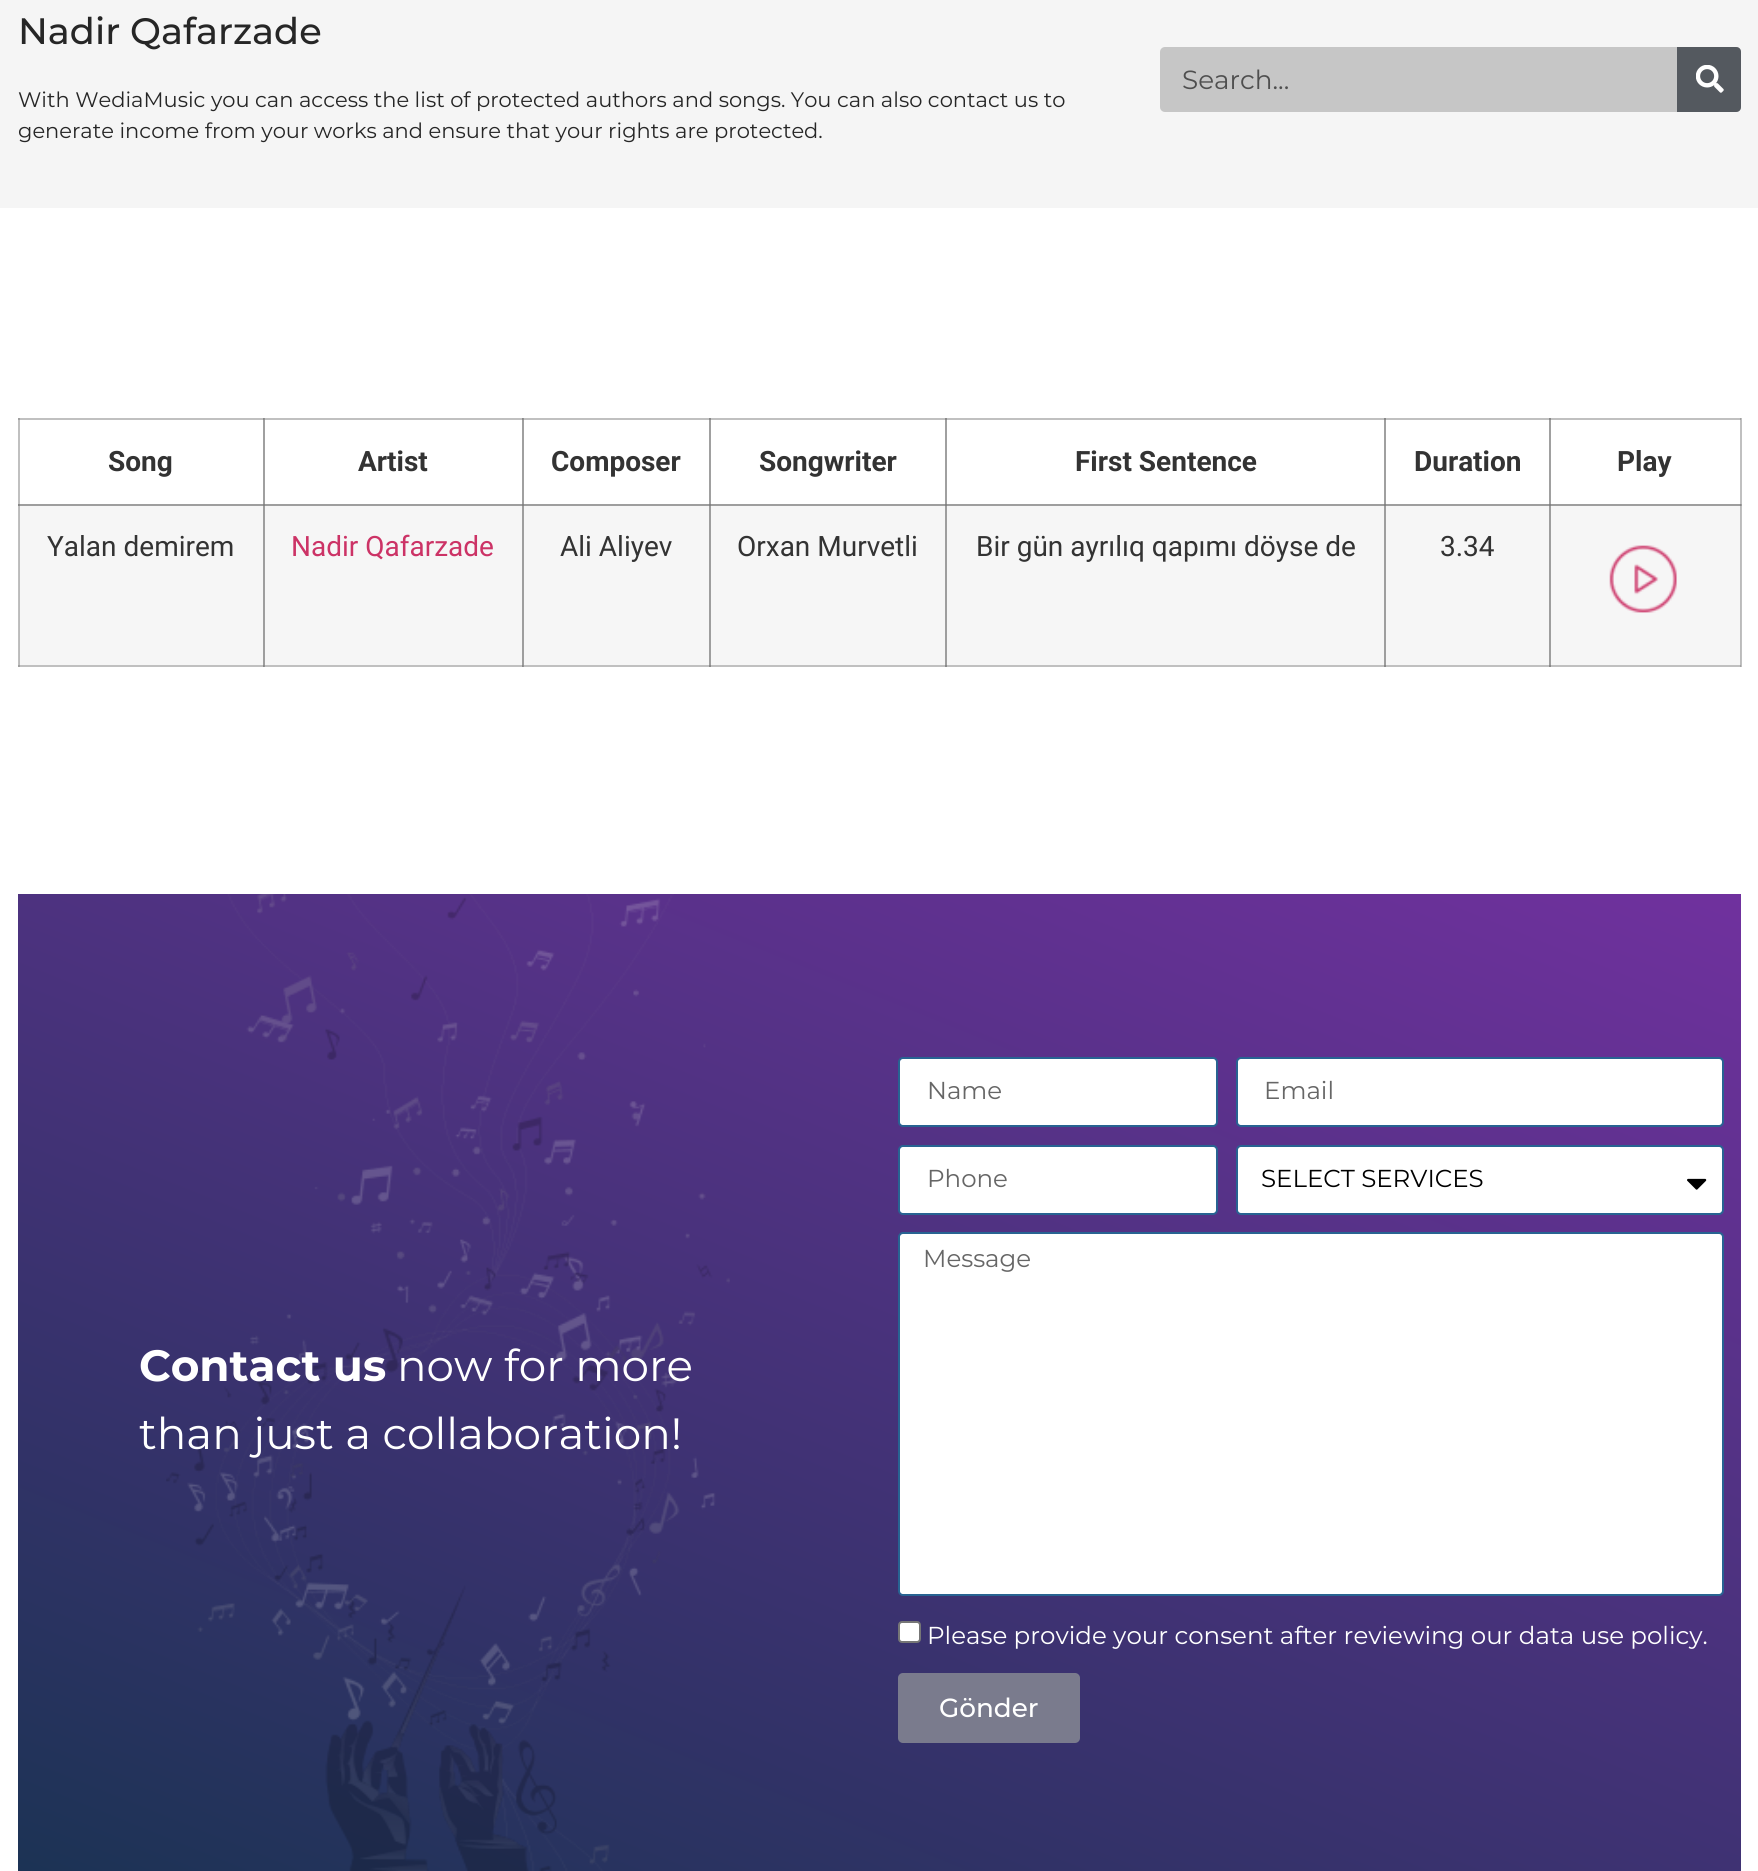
#include <cairo.h>
#include <math.h>
#include <stddef.h>

typedef struct { double x, y; const char *s; } line_t;
typedef struct { double x, y, w, h; unsigned color; } box_t;

static void ink(cairo_t *ctx, unsigned color) {
    cairo_set_source_rgb(ctx, (color >> 16) / 255.0, (color >> 8 & 255) / 255.0, (color & 255) / 255.0);
}

static void round_path(cairo_t *ctx, double x, double y, double w, double h, double r) {
    cairo_new_sub_path(ctx);
    cairo_arc(ctx, x + w - r, y + h - r, r, 0, M_PI / 2);
    cairo_arc(ctx, x + r, y + h - r, r, M_PI / 2, M_PI);
    cairo_arc(ctx, x + r, y + r, r, M_PI, 1.5 * M_PI);
    cairo_arc(ctx, x + w - r, y + r, r, 1.5 * M_PI, 2 * M_PI);
    cairo_close_path(ctx);
}

static void paste(cairo_t *ctx, const char *path, double x, double y, double w, double h) {
    cairo_surface_t *image = cairo_image_surface_create_from_png(path);
    cairo_save(ctx);
    cairo_set_source_surface(ctx, image, x, y);
    cairo_rectangle(ctx, x, y, w, h);
    cairo_fill(ctx);
    cairo_restore(ctx);
    cairo_surface_destroy(image);
}

int main(void) {
    cairo_surface_t *surface = cairo_image_surface_create(CAIRO_FORMAT_RGB24, 1758, 1871);
    cairo_t *ctx = cairo_create(surface);
    cairo_font_options_t *options = cairo_font_options_create();
    cairo_font_options_set_hint_metrics(options, CAIRO_HINT_METRICS_OFF);
    cairo_font_options_set_hint_style(options, CAIRO_HINT_STYLE_NONE);
    cairo_set_font_options(ctx, options);
    cairo_set_miter_limit(ctx, 4);
    cairo_pattern_t *gradient;
    ink(ctx, 0xFFFFFF);
    cairo_paint(ctx);
    {
        static const box_t items[] = {
            {18, 418, 2, 88, 0xC0C0C0},
            {18, 418, 246, 2, 0xC0C0C0},
            {18, 418, 2, 2, 0xA0A0A0},
            {263, 418, 2, 88, 0xA0A0A0},
            {263, 418, 260, 2, 0xC0C0C0},
            {263, 418, 2, 2, 0x909090},
            {263, 418, 1, 2, 0x888888},
            {522, 418, 2, 88, 0xA0A0A0},
            {522, 418, 189, 2, 0xC0C0C0},
            {522, 418, 2, 2, 0x909090},
            {522, 418, 1, 2, 0x888888},
            {709, 418, 2, 88, 0xA0A0A0},
            {709, 418, 238, 2, 0xC0C0C0},
            {709, 418, 2, 2, 0x888888},
            {945, 418, 2, 88, 0xA0A0A0},
            {945, 418, 441, 2, 0xC0C0C0},
            {945, 418, 2, 2, 0x888888},
            {1384, 418, 2, 88, 0xA0A0A0},
            {1384, 418, 167, 2, 0xC0C0C0},
            {1384, 418, 2, 2, 0x888888},
            {1549, 418, 2, 88, 0xA0A0A0},
            {1740, 418, 2, 88, 0xC0C0C0},
            {18, 504, 1, 163, 0xC0C0C0},
            {18, 665, 1723, 2, 0xC0C0C0},
            {18, 665, 2, 2, 0xA0A0A0},
            {18, 504, 2, 2, 0x888888},
            {263, 665, 2, 2, 0x909090},
            {263, 665, 1, 2, 0x888888},
            {522, 665, 2, 2, 0x909090},
            {522, 665, 1, 2, 0x888888},
            {709, 665, 2, 2, 0x888888},
            {945, 665, 2, 2, 0x888888},
            {1384, 665, 2, 2, 0x888888},
            {1549, 665, 2, 2, 0x888888},
            {1741, 504, 1, 163, 0xC0C0C0},
            {1740, 504, 2, 2, 0xA0A0A0},
            {1740, 665, 1, 2, 0xA0A0A0},
            {0, 0, 1758, 208, 0xF5F5F5},
        };
        for (size_t i = 0; i < sizeof items / sizeof *items; i++) {
            ink(ctx, items[i].color);
            cairo_rectangle(ctx, items[i].x, items[i].y, items[i].w, items[i].h);
            cairo_fill(ctx);
        }
    }
    cairo_select_font_face(ctx, "Montserrat Medium", CAIRO_FONT_SLANT_NORMAL, CAIRO_FONT_WEIGHT_NORMAL);
    cairo_set_font_size(ctx, 36.75);
    ink(ctx, 0x262626);
    cairo_move_to(ctx, 18, 44);
    cairo_show_text(ctx, "Nadir Qafarzade");
    cairo_select_font_face(ctx, "Montserrat", CAIRO_FONT_SLANT_NORMAL, CAIRO_FONT_WEIGHT_NORMAL);
    cairo_set_font_size(ctx, 21);
    cairo_move_to(ctx, 18, 107);
    cairo_show_text(ctx, "With WediaMusic you can access the list of protected authors and songs. You can also contact us to");
    cairo_move_to(ctx, 18, 138);
    cairo_show_text(ctx, "generate income from your works and ensure that your rights are protected.");
    ink(ctx, 0xC6C6C6);
    round_path(ctx, 1160, 47, 581, 65, 5);
    cairo_fill(ctx);
    cairo_set_font_size(ctx, 26.25);
    ink(ctx, 0x4F4F4F);
    cairo_move_to(ctx, 1182, 89);
    cairo_show_text(ctx, "Search...");
    ink(ctx, 0x54595F);
    cairo_new_path(ctx);
    cairo_move_to(ctx, 1677, 47);
    cairo_line_to(ctx, 1736, 47);
    cairo_curve_to(ctx, 1739, 47, 1741, 49, 1741, 52);
    cairo_line_to(ctx, 1741, 107);
    cairo_curve_to(ctx, 1741, 110, 1739, 112, 1736, 112);
    cairo_line_to(ctx, 1677, 112);
    cairo_close_path(ctx);
    cairo_fill(ctx);
    paste(ctx, "media/1.png", 1696, 65, 28, 28);
    cairo_select_font_face(ctx, "Roboto", CAIRO_FONT_SLANT_NORMAL, CAIRO_FONT_WEIGHT_BOLD);
    cairo_set_font_size(ctx, 28);
    ink(ctx, 0x333333);
    {
        static const line_t items[] = {
            {108, 471, "Song"},
            {358, 471, "Artist"},
            {551, 471, "Composer"},
            {759, 471, "Songwriter"},
            {1075, 471, "First Sentence"},
            {1414, 471, "Duration"},
        };
        for (size_t i = 0; i < sizeof items / sizeof *items; i++) {
            cairo_move_to(ctx, items[i].x, items[i].y);
            cairo_show_text(ctx, items[i].s);
        }
    }
    {
        static const box_t items[] = {
            {1549, 418, 192, 2, 0xC0C0C0},
            {1549, 418, 2, 2, 0x888888},
            {1740, 418, 1, 2, 0xA0A0A0},
        };
        for (size_t i = 0; i < sizeof items / sizeof *items; i++) {
            ink(ctx, items[i].color);
            cairo_rectangle(ctx, items[i].x, items[i].y, items[i].w, items[i].h);
            cairo_fill(ctx);
        }
    }
    ink(ctx, 0x333333);
    cairo_move_to(ctx, 1617, 471);
    cairo_show_text(ctx, "Play");
    {
        static const box_t items[] = {
            {20, 506, 243, 159, 0xF6F6F6},
            {19, 504, 1, 161, 0xBBBBBB},
            {19, 504, 244, 2, 0x9E9E9E},
            {19, 504, 1, 2, 0x888888},
        };
        for (size_t i = 0; i < sizeof items / sizeof *items; i++) {
            ink(ctx, items[i].color);
            cairo_rectangle(ctx, items[i].x, items[i].y, items[i].w, items[i].h);
            cairo_fill(ctx);
        }
    }
    cairo_select_font_face(ctx, "Roboto", CAIRO_FONT_SLANT_NORMAL, CAIRO_FONT_WEIGHT_NORMAL);
    ink(ctx, 0x333333);
    cairo_move_to(ctx, 47, 556);
    cairo_show_text(ctx, "Yalan demirem");
    {
        static const box_t items[] = {
            {265, 506, 257, 159, 0xF6F6F6},
            {263, 504, 2, 161, 0x9E9E9E},
            {263, 504, 260, 2, 0x9E9E9E},
            {263, 504, 2, 2, 0x828282},
            {522, 504, 2, 161, 0x9E9E9E},
            {522, 504, 1, 2, 0x818181},
        };
        for (size_t i = 0; i < sizeof items / sizeof *items; i++) {
            ink(ctx, items[i].color);
            cairo_rectangle(ctx, items[i].x, items[i].y, items[i].w, items[i].h);
            cairo_fill(ctx);
        }
    }
    ink(ctx, 0xCC3366);
    cairo_move_to(ctx, 291, 556);
    cairo_show_text(ctx, "Nadir Qafarzade");
    {
        static const box_t items[] = {
            {524, 506, 185, 159, 0xF6F6F6},
            {523, 504, 186, 2, 0x9E9E9E},
            {523, 504, 1, 2, 0x828282},
        };
        for (size_t i = 0; i < sizeof items / sizeof *items; i++) {
            ink(ctx, items[i].color);
            cairo_rectangle(ctx, items[i].x, items[i].y, items[i].w, items[i].h);
            cairo_fill(ctx);
        }
    }
    ink(ctx, 0x333333);
    cairo_move_to(ctx, 560, 556);
    cairo_show_text(ctx, "Ali Aliyev");
    {
        static const box_t items[] = {
            {711, 506, 234, 159, 0xF6F6F6},
            {709, 504, 2, 161, 0x9E9E9E},
            {709, 504, 840, 2, 0x9E9E9E},
            {709, 504, 2, 2, 0x818181},
            {945, 504, 2, 161, 0x9E9E9E},
            {945, 504, 2, 2, 0x818181},
        };
        for (size_t i = 0; i < sizeof items / sizeof *items; i++) {
            ink(ctx, items[i].color);
            cairo_rectangle(ctx, items[i].x, items[i].y, items[i].w, items[i].h);
            cairo_fill(ctx);
        }
    }
    ink(ctx, 0x333333);
    cairo_move_to(ctx, 737, 556);
    cairo_show_text(ctx, "Orxan Murvetli");
    {
        static const box_t items[] = {
            {947, 506, 437, 159, 0xF6F6F6},
            {1384, 504, 2, 161, 0x9E9E9E},
            {1384, 504, 2, 2, 0x818181},
        };
        for (size_t i = 0; i < sizeof items / sizeof *items; i++) {
            ink(ctx, items[i].color);
            cairo_rectangle(ctx, items[i].x, items[i].y, items[i].w, items[i].h);
            cairo_fill(ctx);
        }
    }
    ink(ctx, 0x333333);
    cairo_move_to(ctx, 976, 556);
    cairo_show_text(ctx, "Bir gün ayrılıq qapımı döyse de");
    ink(ctx, 0xF6F6F6);
    cairo_rectangle(ctx, 1386, 506, 163, 159);
    cairo_fill(ctx);
    ink(ctx, 0x333333);
    cairo_move_to(ctx, 1440, 556);
    cairo_show_text(ctx, "3.34");
    {
        static const box_t items[] = {
            {1551, 506, 189, 159, 0xF6F6F6},
            {1549, 504, 2, 161, 0x9E9E9E},
            {1740, 504, 1, 161, 0xBBBBBB},
            {1549, 504, 192, 2, 0x9E9E9E},
            {1549, 504, 2, 2, 0x818181},
            {1740, 504, 1, 2, 0x888888},
        };
        for (size_t i = 0; i < sizeof items / sizeof *items; i++) {
            ink(ctx, items[i].color);
            cairo_rectangle(ctx, items[i].x, items[i].y, items[i].w, items[i].h);
            cairo_fill(ctx);
        }
    }
    paste(ctx, "media/2.png", 1609, 545, 68, 68);
    gradient = cairo_pattern_create_linear(1176, 666, 583, 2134);
    cairo_pattern_add_color_stop_rgba(gradient, 0, 0.439, 0.192, 0.62, 1);
    cairo_pattern_add_color_stop_rgba(gradient, 1, 0.102, 0.2, 0.325, 1);
    cairo_set_source(ctx, gradient);
    cairo_pattern_destroy(gradient);
    cairo_rectangle(ctx, 18, 894, 1723, 977);
    cairo_fill(ctx);
    paste(ctx, "media/3.png", 166, 894, 564, 977);
    cairo_select_font_face(ctx, "Montserrat", CAIRO_FONT_SLANT_NORMAL, CAIRO_FONT_WEIGHT_BOLD);
    cairo_set_font_size(ctx, 43.75);
    ink(ctx, 0xFFFFFF);
    cairo_move_to(ctx, 139, 1381);
    cairo_show_text(ctx, "Contact us");
    cairo_select_font_face(ctx, "Montserrat", CAIRO_FONT_SLANT_NORMAL, CAIRO_FONT_WEIGHT_NORMAL);
    cairo_move_to(ctx, 397, 1381);
    cairo_show_text(ctx, "now for more");
    cairo_move_to(ctx, 139, 1449);
    cairo_show_text(ctx, "than just a collaboration!");
    round_path(ctx, 899, 1058, 318, 68, 4);
    cairo_fill_preserve(ctx);
    ink(ctx, 0x286392);
    cairo_stroke(ctx);
    cairo_set_font_size(ctx, 24.5);
    ink(ctx, 0x666666);
    cairo_move_to(ctx, 927, 1099);
    cairo_show_text(ctx, "Name");
    ink(ctx, 0xFFFFFF);
    round_path(ctx, 1237, 1058, 486, 68, 4);
    cairo_fill_preserve(ctx);
    ink(ctx, 0x286392);
    cairo_stroke(ctx);
    ink(ctx, 0x666666);
    cairo_move_to(ctx, 1264, 1099);
    cairo_show_text(ctx, "Email");
    ink(ctx, 0xFFFFFF);
    round_path(ctx, 899, 1146, 318, 68, 4);
    cairo_fill_preserve(ctx);
    ink(ctx, 0x286392);
    cairo_stroke(ctx);
    ink(ctx, 0x666666);
    cairo_move_to(ctx, 927, 1187);
    cairo_show_text(ctx, "Phone");
    ink(ctx, 0xFFFFFF);
    round_path(ctx, 1237, 1146, 486, 68, 4);
    cairo_fill_preserve(ctx);
    ink(ctx, 0x286392);
    cairo_stroke(ctx);
    ink(ctx, 0x000000);
    cairo_move_to(ctx, 1261, 1187);
    cairo_show_text(ctx, "SELECT SERVICES");
    paste(ctx, "media/4.png", 1687, 1178, 20, 12);
    ink(ctx, 0xFFFFFF);
    round_path(ctx, 899, 1233, 824, 362, 4);
    cairo_fill_preserve(ctx);
    ink(ctx, 0x286392);
    cairo_stroke(ctx);
    ink(ctx, 0x666666);
    cairo_move_to(ctx, 923, 1267);
    cairo_show_text(ctx, "Message");
    ink(ctx, 0xFFFFFF);
    round_path(ctx, 899, 1622, 21, 20, 3);
    cairo_fill_preserve(ctx);
    ink(ctx, 0x767676);
    cairo_stroke(ctx);
    ink(ctx, 0xFFFFFF);
    cairo_move_to(ctx, 927, 1644);
    cairo_show_text(ctx, "Please provide your consent after reviewing our data use policy.");
    ink(ctx, 0x7A7B8D);
    round_path(ctx, 898, 1673, 182, 70, 5);
    cairo_fill(ctx);
    cairo_select_font_face(ctx, "Montserrat Medium", CAIRO_FONT_SLANT_NORMAL, CAIRO_FONT_WEIGHT_NORMAL);
    cairo_set_font_size(ctx, 26.25);
    ink(ctx, 0xFFFFFF);
    cairo_move_to(ctx, 939, 1717);
    cairo_show_text(ctx, "Gönder");
    cairo_surface_write_to_png(surface, "image.png");
    cairo_font_options_destroy(options);
    cairo_destroy(ctx);
    cairo_surface_destroy(surface);
    return 0;
}
